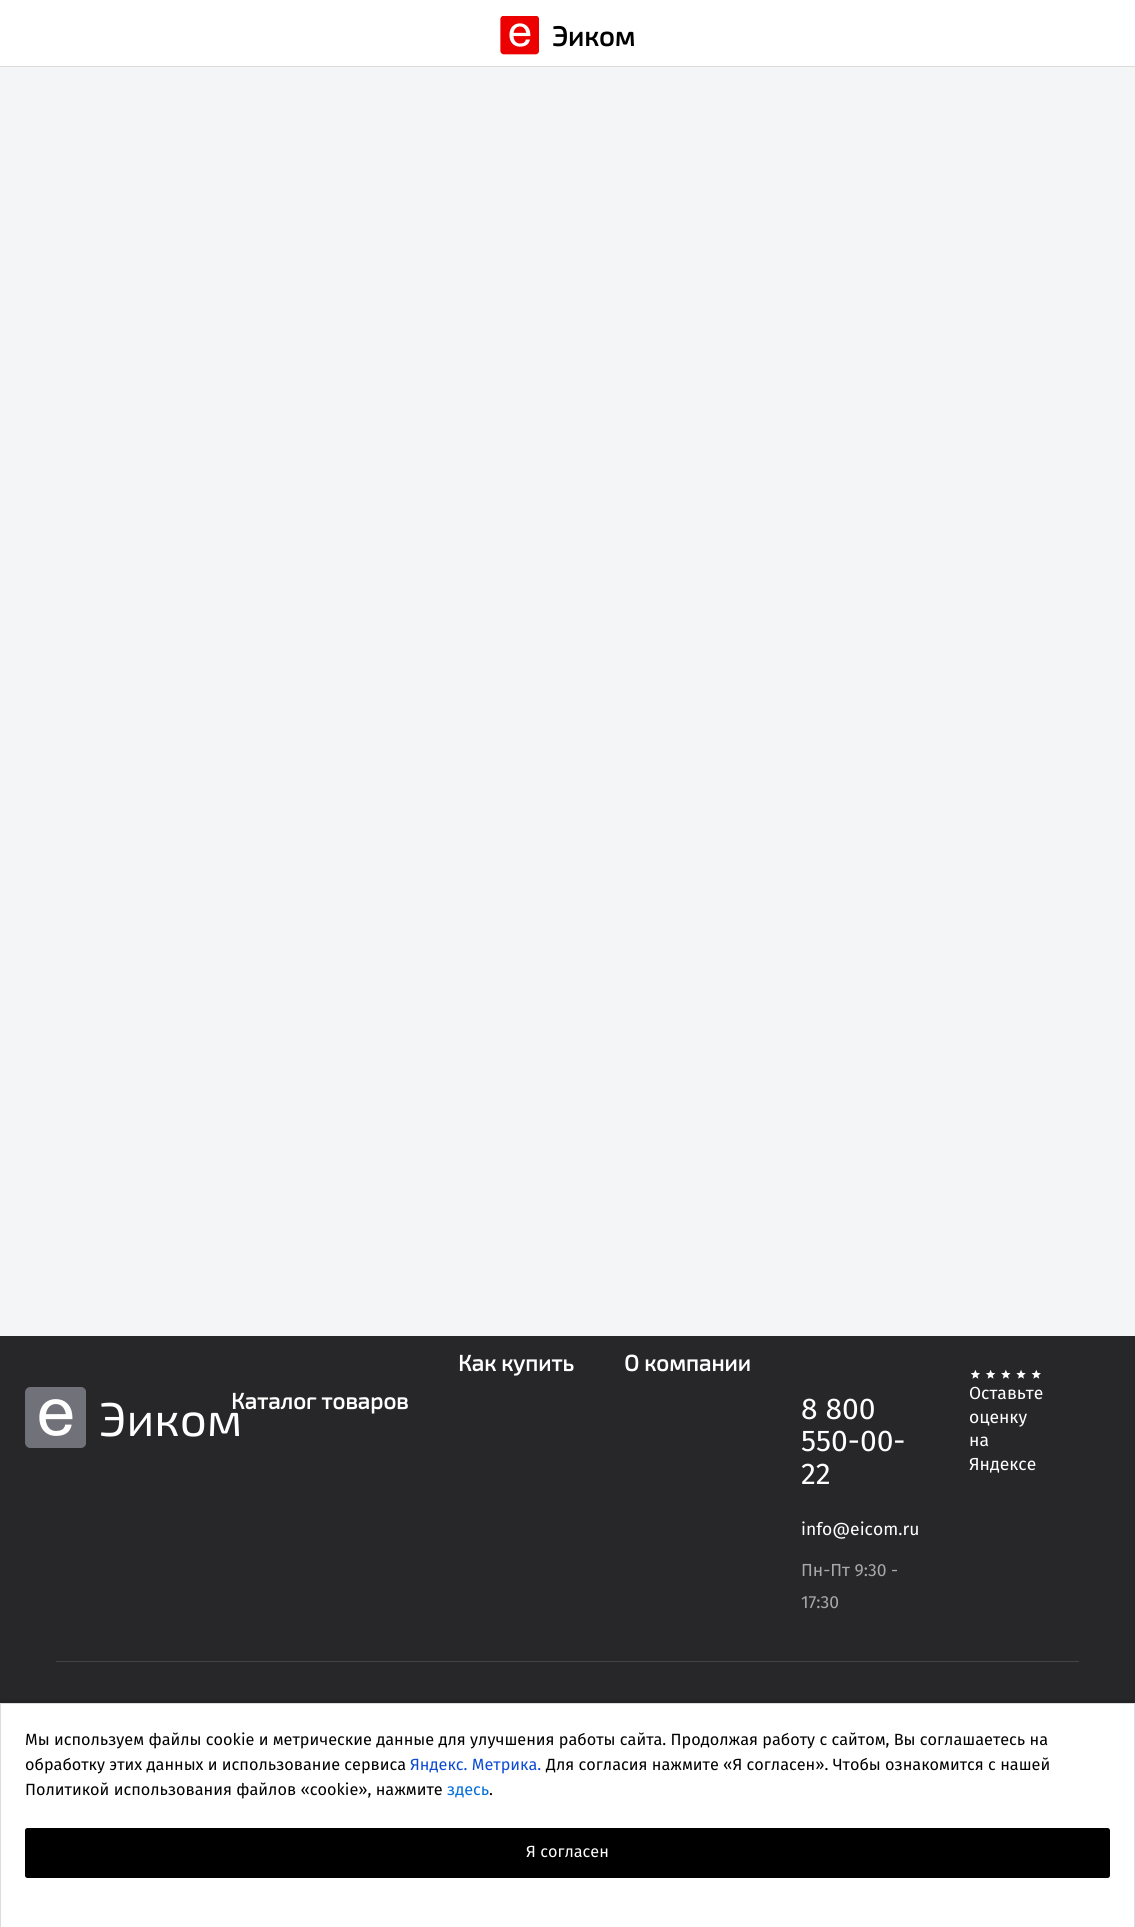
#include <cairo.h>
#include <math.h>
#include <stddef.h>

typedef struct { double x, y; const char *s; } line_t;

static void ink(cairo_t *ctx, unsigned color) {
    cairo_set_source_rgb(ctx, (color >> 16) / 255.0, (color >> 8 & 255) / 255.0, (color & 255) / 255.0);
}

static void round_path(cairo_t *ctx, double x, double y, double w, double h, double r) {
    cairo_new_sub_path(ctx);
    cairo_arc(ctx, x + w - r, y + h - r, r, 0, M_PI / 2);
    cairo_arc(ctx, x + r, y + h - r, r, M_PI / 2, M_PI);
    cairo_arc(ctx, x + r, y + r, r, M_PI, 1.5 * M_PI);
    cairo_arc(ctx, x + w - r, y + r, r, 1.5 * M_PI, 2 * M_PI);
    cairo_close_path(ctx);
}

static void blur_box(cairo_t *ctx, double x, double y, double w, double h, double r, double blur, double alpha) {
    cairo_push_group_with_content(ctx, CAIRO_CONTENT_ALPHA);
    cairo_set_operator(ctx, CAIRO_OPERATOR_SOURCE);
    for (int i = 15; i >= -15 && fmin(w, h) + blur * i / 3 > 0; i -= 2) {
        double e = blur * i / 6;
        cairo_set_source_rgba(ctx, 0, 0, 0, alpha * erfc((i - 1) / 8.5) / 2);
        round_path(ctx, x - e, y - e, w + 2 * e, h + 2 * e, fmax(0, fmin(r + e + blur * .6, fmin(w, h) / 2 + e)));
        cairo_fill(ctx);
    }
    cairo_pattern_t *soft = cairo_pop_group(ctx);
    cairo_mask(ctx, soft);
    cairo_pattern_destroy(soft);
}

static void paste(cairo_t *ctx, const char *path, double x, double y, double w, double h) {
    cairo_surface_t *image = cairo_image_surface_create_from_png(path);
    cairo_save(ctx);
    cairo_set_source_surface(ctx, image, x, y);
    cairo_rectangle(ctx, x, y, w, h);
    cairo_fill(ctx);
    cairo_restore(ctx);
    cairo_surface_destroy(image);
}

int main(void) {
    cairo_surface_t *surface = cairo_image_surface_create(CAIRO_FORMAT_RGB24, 1135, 1927);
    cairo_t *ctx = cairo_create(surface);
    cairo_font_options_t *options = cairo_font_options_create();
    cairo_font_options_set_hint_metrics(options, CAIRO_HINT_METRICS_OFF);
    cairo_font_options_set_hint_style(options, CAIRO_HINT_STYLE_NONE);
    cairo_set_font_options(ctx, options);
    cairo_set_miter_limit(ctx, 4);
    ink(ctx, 0xF4F5F6);
    cairo_paint(ctx);
    ink(ctx, 0xFFFFFF);
    cairo_rectangle(ctx, 0, 0, 1135, 66);
    cairo_fill(ctx);
    ink(ctx, 0xDCDCDC);
    cairo_rectangle(ctx, 0, 66, 1135, 1);
    cairo_fill(ctx);
    paste(ctx, "media/1.png", 500, 16, 39, 39);
    cairo_select_font_face(ctx, "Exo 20", CAIRO_FONT_SLANT_NORMAL, CAIRO_FONT_WEIGHT_BOLD);
    cairo_set_font_size(ctx, 27.5);
    ink(ctx, 0x000000);
    cairo_move_to(ctx, 552, 46);
    cairo_show_text(ctx, "Эиком");
    ink(ctx, 0x272729);
    cairo_rectangle(ctx, 0, 1336, 1135, 367);
    cairo_fill(ctx);
    cairo_set_font_size(ctx, 22.5);
    ink(ctx, 0xFFFFFF);
    cairo_move_to(ctx, 458, 1371);
    cairo_show_text(ctx, "Как купить");
    cairo_move_to(ctx, 624, 1371);
    cairo_show_text(ctx, "О компании");
    paste(ctx, "media/2.png", 25, 1387, 61, 61);
    cairo_select_font_face(ctx, "Exo 20", CAIRO_FONT_SLANT_NORMAL, CAIRO_FONT_WEIGHT_NORMAL);
    cairo_set_font_size(ctx, 47.5);
    cairo_move_to(ctx, 99, 1436);
    cairo_show_text(ctx, "Эиком");
    cairo_select_font_face(ctx, "Exo 20", CAIRO_FONT_SLANT_NORMAL, CAIRO_FONT_WEIGHT_BOLD);
    cairo_set_font_size(ctx, 22.5);
    cairo_move_to(ctx, 231, 1409);
    cairo_show_text(ctx, "Каталог товаров");
    cairo_select_font_face(ctx, "Fira Sans", CAIRO_FONT_SLANT_NORMAL, CAIRO_FONT_WEIGHT_NORMAL);
    cairo_set_font_size(ctx, 30);
    {
        static const line_t items[] = {
            {801, 1419, "8 800"},
            {801, 1451, "550-00-"},
            {801, 1484, "22"},
        };
        for (size_t i = 0; i < sizeof items / sizeof *items; i++) {
            cairo_move_to(ctx, items[i].x, items[i].y);
            cairo_show_text(ctx, items[i].s);
        }
    }
    cairo_set_font_size(ctx, 17.5);
    cairo_move_to(ctx, 801, 1535);
    cairo_show_text(ctx, "info@eicom.ru");
    ink(ctx, 0xA8A8A8);
    cairo_move_to(ctx, 801, 1576);
    cairo_show_text(ctx, "Пн-Пт 9:30 -");
    cairo_move_to(ctx, 801, 1608);
    cairo_show_text(ctx, "17:30");
    paste(ctx, "media/3.png", 970, 1369, 71, 10);
    ink(ctx, 0xFFFFFF);
    {
        static const line_t items[] = {
            {969, 1399, "Оставьте"},
            {969, 1423, "оценку"},
            {969, 1446, "на"},
            {969, 1470, "Яндексе"},
        };
        for (size_t i = 0; i < sizeof items / sizeof *items; i++) {
            cairo_move_to(ctx, items[i].x, items[i].y);
            cairo_show_text(ctx, items[i].s);
        }
    }
    ink(ctx, 0x444444);
    cairo_rectangle(ctx, 56, 1661, 1023, 1);
    cairo_fill(ctx);
    ink(ctx, 0x000000);
    blur_box(ctx, 0, 1700, 1135, 225, 0, 1, 0.12);
    ink(ctx, 0xFFFFFF);
    cairo_rectangle(ctx, 0.5, 1703.5, 1134, 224);
    cairo_fill_preserve(ctx);
    ink(ctx, 0xDCDCDC);
    cairo_set_line_width(ctx, 1);
    cairo_stroke(ctx);
    cairo_set_font_size(ctx, 16.25);
    ink(ctx, 0x000000);
    cairo_move_to(ctx, 25, 1745);
    cairo_show_text(ctx, "Мы используем файлы cookie и метрические данные для улучшения работы сайта. Продолжая работу с сайтом, Вы соглашаетесь на");
    cairo_move_to(ctx, 25, 1770);
    cairo_show_text(ctx, "обработку этих данных и использование сервиса");
    ink(ctx, 0x0C49D4);
    cairo_move_to(ctx, 410, 1770);
    cairo_show_text(ctx, "Яндекс. Метрика.");
    ink(ctx, 0x000000);
    cairo_move_to(ctx, 546, 1770);
    cairo_show_text(ctx, "Для согласия нажмите «Я согласен». Чтобы ознакомится с нашей");
    cairo_move_to(ctx, 25, 1795);
    cairo_show_text(ctx, "Политикой использования файлов «cookie», нажмите");
    ink(ctx, 0x006DDA);
    cairo_move_to(ctx, 447, 1795);
    cairo_show_text(ctx, "здесь");
    ink(ctx, 0x000000);
    cairo_move_to(ctx, 489, 1795);
    cairo_show_text(ctx, ".");
    round_path(ctx, 25, 1828, 1085, 50, 2.5);
    cairo_fill(ctx);
    ink(ctx, 0xFFFFFF);
    cairo_move_to(ctx, 526, 1857);
    cairo_show_text(ctx, "Я согласен");
    cairo_surface_write_to_png(surface, "image.png");
    cairo_font_options_destroy(options);
    cairo_destroy(ctx);
    cairo_surface_destroy(surface);
    return 0;
}
